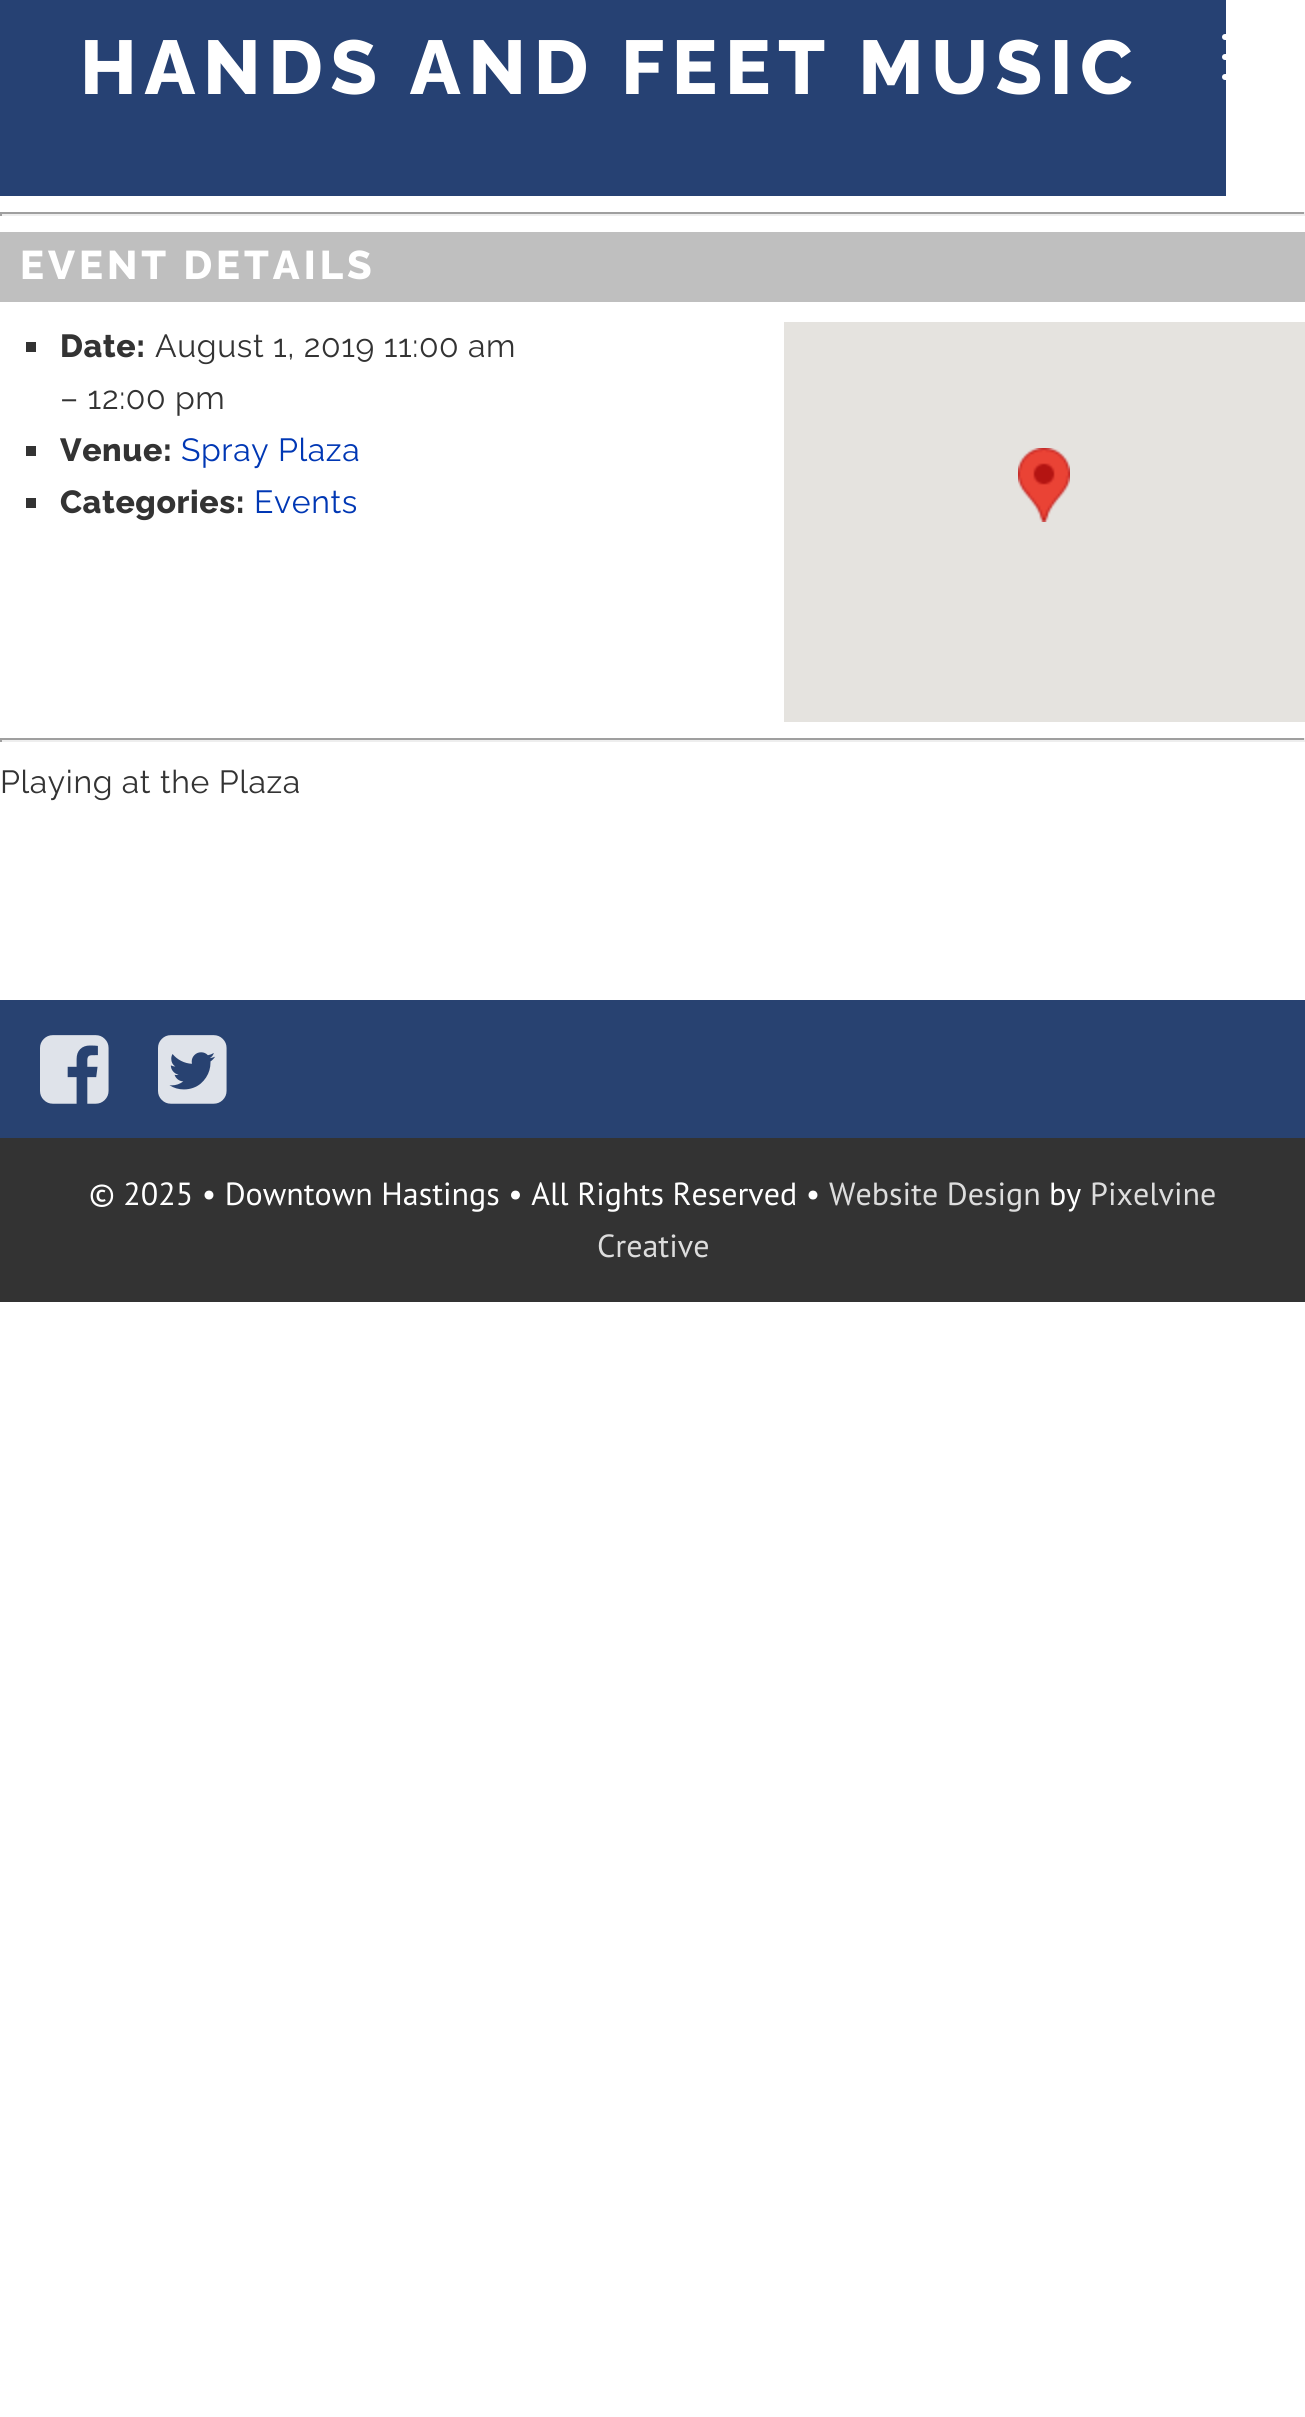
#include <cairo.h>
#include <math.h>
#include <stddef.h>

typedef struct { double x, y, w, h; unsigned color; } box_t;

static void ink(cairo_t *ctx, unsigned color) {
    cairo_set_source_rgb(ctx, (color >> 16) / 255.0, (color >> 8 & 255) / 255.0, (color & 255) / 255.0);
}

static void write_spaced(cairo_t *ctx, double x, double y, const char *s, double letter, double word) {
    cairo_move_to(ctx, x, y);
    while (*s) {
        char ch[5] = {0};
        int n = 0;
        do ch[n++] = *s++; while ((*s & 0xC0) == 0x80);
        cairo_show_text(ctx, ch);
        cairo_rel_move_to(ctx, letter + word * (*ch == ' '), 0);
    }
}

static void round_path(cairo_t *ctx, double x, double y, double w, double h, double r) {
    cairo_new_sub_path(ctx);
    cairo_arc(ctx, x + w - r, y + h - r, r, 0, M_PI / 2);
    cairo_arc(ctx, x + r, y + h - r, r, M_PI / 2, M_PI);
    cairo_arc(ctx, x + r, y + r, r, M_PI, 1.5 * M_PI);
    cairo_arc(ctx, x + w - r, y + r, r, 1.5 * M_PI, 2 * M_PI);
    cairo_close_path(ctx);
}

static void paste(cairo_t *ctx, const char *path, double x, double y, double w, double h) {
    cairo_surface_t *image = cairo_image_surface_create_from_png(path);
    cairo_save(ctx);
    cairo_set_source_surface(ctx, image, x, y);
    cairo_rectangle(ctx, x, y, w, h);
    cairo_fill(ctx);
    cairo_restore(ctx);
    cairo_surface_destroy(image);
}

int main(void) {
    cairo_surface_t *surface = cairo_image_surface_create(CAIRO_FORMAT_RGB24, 1305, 2417);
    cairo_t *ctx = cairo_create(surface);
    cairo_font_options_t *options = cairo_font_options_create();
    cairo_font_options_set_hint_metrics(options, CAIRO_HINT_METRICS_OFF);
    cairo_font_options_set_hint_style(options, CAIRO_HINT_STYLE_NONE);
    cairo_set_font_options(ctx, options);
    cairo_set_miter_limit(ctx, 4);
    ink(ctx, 0xFFFFFF);
    cairo_paint(ctx);
    ink(ctx, 0x264173);
    cairo_rectangle(ctx, 0, 0, 1226, 196);
    cairo_fill(ctx);
    cairo_select_font_face(ctx, "Raleway ExtraBold", CAIRO_FONT_SLANT_NORMAL, CAIRO_FONT_WEIGHT_NORMAL);
    cairo_set_font_size(ctx, 76);
    ink(ctx, 0xFFFFFF);
    write_spaced(ctx, 80, 94, "HANDS AND FEET MUSIC", 7.6, 0);
    {
        static const box_t items[] = {
            {0, 212, 1305, 2, 0x9F9F9F},
            {1304, 212, 1, 4, 0xEEEEEE},
            {0, 214, 1305, 2, 0xEEEEEE},
            {0, 212, 2, 4, 0x9F9F9F},
            {0, 232, 1305, 70, 0xBFBFBF},
        };
        for (size_t i = 0; i < sizeof items / sizeof *items; i++) {
            ink(ctx, items[i].color);
            cairo_rectangle(ctx, items[i].x, items[i].y, items[i].w, items[i].h);
            cairo_fill(ctx);
        }
    }
    cairo_set_font_size(ctx, 40);
    ink(ctx, 0xFFFFFF);
    write_spaced(ctx, 20, 279, "EVENT DETAILS", 4, 0);
    ink(ctx, 0x333333);
    cairo_rectangle(ctx, 26, 342, 10, 10);
    cairo_fill(ctx);
    cairo_set_font_size(ctx, 32);
    write_spaced(ctx, 60, 357, "Date:", 0.6, 0);
    cairo_select_font_face(ctx, "Raleway", CAIRO_FONT_SLANT_NORMAL, CAIRO_FONT_WEIGHT_NORMAL);
    write_spaced(ctx, 155, 357, "August 1, 2019 11:00 am", 0.6, 0);
    write_spaced(ctx, 60, 409, "– 12:00 pm", 0.6, 0);
    cairo_rectangle(ctx, 26, 446, 10, 10);
    cairo_fill(ctx);
    cairo_select_font_face(ctx, "Raleway ExtraBold", CAIRO_FONT_SLANT_NORMAL, CAIRO_FONT_WEIGHT_NORMAL);
    write_spaced(ctx, 60, 461, "Venue:", 0.6, 0);
    cairo_select_font_face(ctx, "Raleway", CAIRO_FONT_SLANT_NORMAL, CAIRO_FONT_WEIGHT_NORMAL);
    ink(ctx, 0x0037B4);
    write_spaced(ctx, 181, 461, "Spray Plaza", 0.6, 0);
    ink(ctx, 0x333333);
    cairo_rectangle(ctx, 26, 498, 10, 10);
    cairo_fill(ctx);
    cairo_select_font_face(ctx, "Raleway ExtraBold", CAIRO_FONT_SLANT_NORMAL, CAIRO_FONT_WEIGHT_NORMAL);
    write_spaced(ctx, 60, 513, "Categories:", 0.6, 0);
    cairo_select_font_face(ctx, "Raleway", CAIRO_FONT_SLANT_NORMAL, CAIRO_FONT_WEIGHT_NORMAL);
    ink(ctx, 0x0037B4);
    write_spaced(ctx, 254, 513, "Events", 0.6, 0);
    ink(ctx, 0xE5E3DF);
    cairo_rectangle(ctx, 784, 322, 521, 400);
    cairo_fill(ctx);
    paste(ctx, "media/1.png", 1018, 448, 52, 74);
    {
        static const box_t items[] = {
            {0, 738, 1305, 2, 0x9F9F9F},
            {1304, 738, 1, 4, 0xEEEEEE},
            {0, 740, 1305, 2, 0xEEEEEE},
            {0, 738, 2, 4, 0x9F9F9F},
        };
        for (size_t i = 0; i < sizeof items / sizeof *items; i++) {
            ink(ctx, items[i].color);
            cairo_rectangle(ctx, items[i].x, items[i].y, items[i].w, items[i].h);
            cairo_fill(ctx);
        }
    }
    ink(ctx, 0x333333);
    write_spaced(ctx, 0, 793, "Playing at the Plaza", 0.6, 0);
    ink(ctx, 0x284271);
    cairo_rectangle(ctx, 0, 1000, 1305, 138);
    cairo_fill(ctx);
    paste(ctx, "media/2.png", 40, 1035, 69, 69);
    paste(ctx, "media/3.png", 158, 1035, 69, 69);
    ink(ctx, 0x333333);
    cairo_rectangle(ctx, 0, 1138, 1305, 164);
    cairo_fill(ctx);
    cairo_select_font_face(ctx, "PT Sans", CAIRO_FONT_SLANT_NORMAL, CAIRO_FONT_WEIGHT_NORMAL);
    ink(ctx, 0xFFFFFF);
    cairo_move_to(ctx, 89, 1205);
    cairo_show_text(ctx, "© 2025 • Downtown Hastings • All Rights Reserved •");
    ink(ctx, 0xDDDDDD);
    cairo_move_to(ctx, 829, 1205);
    cairo_show_text(ctx, "Website Design");
    ink(ctx, 0xFFFFFF);
    cairo_move_to(ctx, 1049, 1205);
    cairo_show_text(ctx, "by");
    ink(ctx, 0xDDDDDD);
    cairo_move_to(ctx, 1090, 1205);
    cairo_show_text(ctx, "Pixelvine");
    cairo_move_to(ctx, 597, 1257);
    cairo_show_text(ctx, "Creative");
    ink(ctx, 0xFFFFFF);
    round_path(ctx, 1222, 54, 60, 6, 3);
    cairo_fill(ctx);
    round_path(ctx, 1222, 34, 60, 6, 3);
    cairo_fill(ctx);
    round_path(ctx, 1222, 74, 60, 6, 3);
    cairo_fill(ctx);
    cairo_surface_write_to_png(surface, "image.png");
    cairo_font_options_destroy(options);
    cairo_destroy(ctx);
    cairo_surface_destroy(surface);
    return 0;
}
